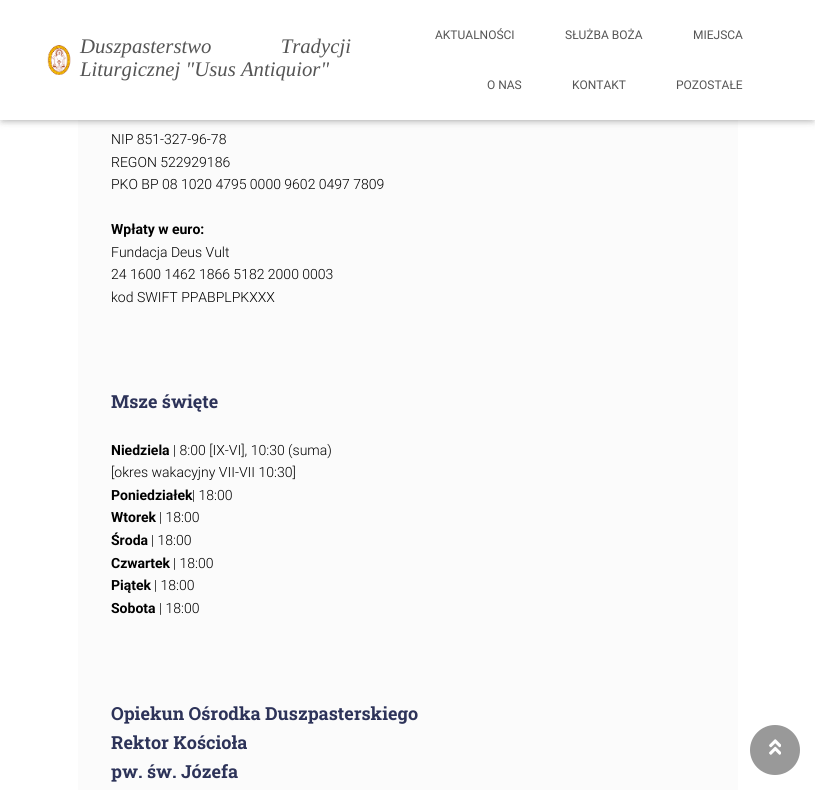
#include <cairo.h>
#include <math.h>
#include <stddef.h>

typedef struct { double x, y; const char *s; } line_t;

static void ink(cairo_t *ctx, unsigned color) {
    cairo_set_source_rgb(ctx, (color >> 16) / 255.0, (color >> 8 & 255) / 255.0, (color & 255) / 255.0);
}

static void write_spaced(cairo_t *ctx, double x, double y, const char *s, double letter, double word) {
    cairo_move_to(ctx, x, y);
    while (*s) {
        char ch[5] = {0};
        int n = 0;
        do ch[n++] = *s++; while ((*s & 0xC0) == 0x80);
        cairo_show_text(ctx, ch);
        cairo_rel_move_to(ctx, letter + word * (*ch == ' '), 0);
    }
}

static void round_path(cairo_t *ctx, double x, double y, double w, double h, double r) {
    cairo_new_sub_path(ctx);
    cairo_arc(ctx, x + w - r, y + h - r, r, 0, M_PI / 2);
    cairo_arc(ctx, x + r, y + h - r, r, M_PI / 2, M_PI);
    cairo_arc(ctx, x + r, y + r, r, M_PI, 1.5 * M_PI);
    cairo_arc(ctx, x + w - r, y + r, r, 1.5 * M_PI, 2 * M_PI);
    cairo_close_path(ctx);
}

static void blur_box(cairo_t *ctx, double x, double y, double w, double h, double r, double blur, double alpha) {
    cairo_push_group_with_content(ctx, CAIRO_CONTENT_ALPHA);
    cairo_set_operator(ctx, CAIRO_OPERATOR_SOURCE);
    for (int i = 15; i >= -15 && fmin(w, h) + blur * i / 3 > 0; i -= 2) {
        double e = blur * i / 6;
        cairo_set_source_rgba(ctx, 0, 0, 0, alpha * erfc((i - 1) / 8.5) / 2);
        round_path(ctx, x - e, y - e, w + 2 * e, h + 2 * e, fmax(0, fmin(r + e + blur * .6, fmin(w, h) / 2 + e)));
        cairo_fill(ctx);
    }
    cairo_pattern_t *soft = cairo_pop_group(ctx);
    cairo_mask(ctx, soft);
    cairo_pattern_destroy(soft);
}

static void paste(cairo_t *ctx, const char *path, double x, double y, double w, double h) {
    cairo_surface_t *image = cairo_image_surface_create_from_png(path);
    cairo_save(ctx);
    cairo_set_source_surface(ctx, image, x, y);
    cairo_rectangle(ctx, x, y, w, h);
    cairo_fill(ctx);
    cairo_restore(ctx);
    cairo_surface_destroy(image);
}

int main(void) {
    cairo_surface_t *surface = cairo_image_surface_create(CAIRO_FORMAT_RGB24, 815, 790);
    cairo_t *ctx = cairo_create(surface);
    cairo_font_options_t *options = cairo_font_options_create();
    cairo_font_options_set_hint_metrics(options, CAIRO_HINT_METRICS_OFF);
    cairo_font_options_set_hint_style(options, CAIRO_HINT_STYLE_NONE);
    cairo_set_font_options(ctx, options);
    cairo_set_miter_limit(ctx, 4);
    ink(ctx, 0xFFFFFF);
    cairo_paint(ctx);
    ink(ctx, 0xFBFBFB);
    cairo_rectangle(ctx, 78, 120, 660, 670);
    cairo_fill(ctx);
    ink(ctx, 0x000000);
    blur_box(ctx, 2, 6, 811, 116, 0, 2.5, 0.1);
    blur_box(ctx, 0, 1, 815, 120, 0, 5, 0.12);
    blur_box(ctx, 6, 7, 803, 108, 0, 5, 0.42);
    ink(ctx, 0xFFFFFF);
    cairo_rectangle(ctx, 0, 0, 815, 120);
    cairo_fill(ctx);
    paste(ctx, "media/1.png", 47, 45, 24, 30);
    cairo_select_font_face(ctx, "Liberation Serif", CAIRO_FONT_SLANT_ITALIC, CAIRO_FONT_WEIGHT_NORMAL);
    cairo_set_font_size(ctx, 20.75);
    ink(ctx, 0x555555);
    write_spaced(ctx, 80, 53, "Duszpasterstwo Tradycji", 0, 64);
    cairo_move_to(ctx, 80, 76);
    cairo_show_text(ctx, "Liturgicznej \"Usus Antiquior\"");
    cairo_select_font_face(ctx, "Roboto", CAIRO_FONT_SLANT_NORMAL, CAIRO_FONT_WEIGHT_NORMAL);
    cairo_set_font_size(ctx, 12);
    {
        static const line_t items[] = {
            {435, 39, "AKTUALNOŚCI"},
            {565, 39, "SŁUŻBA BOŻA"},
            {693, 39, "MIEJSCA"},
            {487, 89, "O NAS"},
            {572, 89, "KONTAKT"},
            {676, 89, "POZOSTAŁE"},
        };
        for (size_t i = 0; i < sizeof items / sizeof *items; i++) {
            cairo_move_to(ctx, items[i].x, items[i].y);
            cairo_show_text(ctx, items[i].s);
        }
    }
    cairo_select_font_face(ctx, "Roboto Light", CAIRO_FONT_SLANT_NORMAL, CAIRO_FONT_WEIGHT_NORMAL);
    cairo_set_font_size(ctx, 14);
    ink(ctx, 0x000000);
    {
        static const line_t items[] = {
            {111, 144, "NIP 851-327-96-78"},
            {111, 167, "REGON 522929186"},
            {111, 189, "PKO BP 08 1020 4795 0000 9602 0497 7809"},
        };
        for (size_t i = 0; i < sizeof items / sizeof *items; i++) {
            cairo_move_to(ctx, items[i].x, items[i].y);
            cairo_show_text(ctx, items[i].s);
        }
    }
    cairo_select_font_face(ctx, "Roboto", CAIRO_FONT_SLANT_NORMAL, CAIRO_FONT_WEIGHT_BOLD);
    cairo_move_to(ctx, 111, 234);
    cairo_show_text(ctx, "Wpłaty w euro:");
    cairo_select_font_face(ctx, "Roboto Light", CAIRO_FONT_SLANT_NORMAL, CAIRO_FONT_WEIGHT_NORMAL);
    {
        static const line_t items[] = {
            {111, 257, "Fundacja Deus Vult"},
            {111, 279, "24 1600 1462 1866 5182 2000 0003"},
            {111, 302, "kod SWIFT PPABPLPKXXX"},
        };
        for (size_t i = 0; i < sizeof items / sizeof *items; i++) {
            cairo_move_to(ctx, items[i].x, items[i].y);
            cairo_show_text(ctx, items[i].s);
        }
    }
    cairo_select_font_face(ctx, "Roboto Slab", CAIRO_FONT_SLANT_NORMAL, CAIRO_FONT_WEIGHT_BOLD);
    cairo_set_font_size(ctx, 18);
    ink(ctx, 0x2D3359);
    cairo_move_to(ctx, 111, 408);
    cairo_show_text(ctx, "Msze święte");
    cairo_select_font_face(ctx, "Roboto", CAIRO_FONT_SLANT_NORMAL, CAIRO_FONT_WEIGHT_BOLD);
    cairo_set_font_size(ctx, 14);
    ink(ctx, 0x000000);
    cairo_move_to(ctx, 111, 455);
    cairo_show_text(ctx, "Niedziela");
    cairo_select_font_face(ctx, "Roboto Light", CAIRO_FONT_SLANT_NORMAL, CAIRO_FONT_WEIGHT_NORMAL);
    cairo_move_to(ctx, 173, 455);
    cairo_show_text(ctx, "| 8:00 [IX-VI], 10:30 (suma)");
    cairo_move_to(ctx, 111, 477);
    cairo_show_text(ctx, "[okres wakacyjny VII-VII 10:30]");
    cairo_select_font_face(ctx, "Roboto", CAIRO_FONT_SLANT_NORMAL, CAIRO_FONT_WEIGHT_BOLD);
    cairo_move_to(ctx, 111, 500);
    cairo_show_text(ctx, "Poniedziałek");
    cairo_select_font_face(ctx, "Roboto Light", CAIRO_FONT_SLANT_NORMAL, CAIRO_FONT_WEIGHT_NORMAL);
    cairo_move_to(ctx, 192, 500);
    cairo_show_text(ctx, "| 18:00");
    cairo_select_font_face(ctx, "Roboto", CAIRO_FONT_SLANT_NORMAL, CAIRO_FONT_WEIGHT_BOLD);
    cairo_move_to(ctx, 111, 522);
    cairo_show_text(ctx, "Wtorek");
    cairo_select_font_face(ctx, "Roboto Light", CAIRO_FONT_SLANT_NORMAL, CAIRO_FONT_WEIGHT_NORMAL);
    cairo_move_to(ctx, 159, 522);
    cairo_show_text(ctx, "| 18:00");
    cairo_select_font_face(ctx, "Roboto", CAIRO_FONT_SLANT_NORMAL, CAIRO_FONT_WEIGHT_BOLD);
    cairo_move_to(ctx, 111, 545);
    cairo_show_text(ctx, "Środa");
    cairo_select_font_face(ctx, "Roboto Light", CAIRO_FONT_SLANT_NORMAL, CAIRO_FONT_WEIGHT_NORMAL);
    cairo_move_to(ctx, 151, 545);
    cairo_show_text(ctx, "| 18:00");
    cairo_select_font_face(ctx, "Roboto", CAIRO_FONT_SLANT_NORMAL, CAIRO_FONT_WEIGHT_BOLD);
    cairo_move_to(ctx, 111, 568);
    cairo_show_text(ctx, "Czwartek");
    cairo_select_font_face(ctx, "Roboto Light", CAIRO_FONT_SLANT_NORMAL, CAIRO_FONT_WEIGHT_NORMAL);
    cairo_move_to(ctx, 173, 568);
    cairo_show_text(ctx, "| 18:00");
    cairo_select_font_face(ctx, "Roboto", CAIRO_FONT_SLANT_NORMAL, CAIRO_FONT_WEIGHT_BOLD);
    cairo_move_to(ctx, 111, 590);
    cairo_show_text(ctx, "Piątek");
    cairo_select_font_face(ctx, "Roboto Light", CAIRO_FONT_SLANT_NORMAL, CAIRO_FONT_WEIGHT_NORMAL);
    cairo_move_to(ctx, 154, 590);
    cairo_show_text(ctx, "| 18:00");
    cairo_select_font_face(ctx, "Roboto", CAIRO_FONT_SLANT_NORMAL, CAIRO_FONT_WEIGHT_BOLD);
    cairo_move_to(ctx, 111, 613);
    cairo_show_text(ctx, "Sobota");
    cairo_select_font_face(ctx, "Roboto Light", CAIRO_FONT_SLANT_NORMAL, CAIRO_FONT_WEIGHT_NORMAL);
    cairo_move_to(ctx, 159, 613);
    cairo_show_text(ctx, "| 18:00");
    cairo_select_font_face(ctx, "Roboto Slab", CAIRO_FONT_SLANT_NORMAL, CAIRO_FONT_WEIGHT_BOLD);
    cairo_set_font_size(ctx, 18);
    ink(ctx, 0x2D3359);
    {
        static const line_t items[] = {
            {111, 720, "Opiekun Ośrodka Duszpasterskiego"},
            {111, 749, "Rektor Kościoła"},
            {111, 778, "pw. św. Józefa"},
        };
        for (size_t i = 0; i < sizeof items / sizeof *items; i++) {
            cairo_move_to(ctx, items[i].x, items[i].y);
            cairo_show_text(ctx, items[i].s);
        }
    }
    ink(ctx, 0x999999);
    cairo_new_path(ctx);
    cairo_arc(ctx, 775, 750, 25, 0, 2 * M_PI);
    cairo_fill(ctx);
    paste(ctx, "media/2.png", 769, 739, 12, 16);
    cairo_surface_write_to_png(surface, "image.png");
    cairo_font_options_destroy(options);
    cairo_destroy(ctx);
    cairo_surface_destroy(surface);
    return 0;
}
